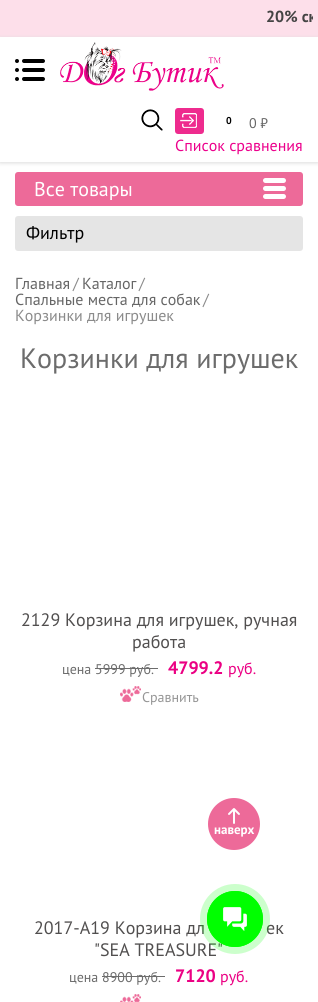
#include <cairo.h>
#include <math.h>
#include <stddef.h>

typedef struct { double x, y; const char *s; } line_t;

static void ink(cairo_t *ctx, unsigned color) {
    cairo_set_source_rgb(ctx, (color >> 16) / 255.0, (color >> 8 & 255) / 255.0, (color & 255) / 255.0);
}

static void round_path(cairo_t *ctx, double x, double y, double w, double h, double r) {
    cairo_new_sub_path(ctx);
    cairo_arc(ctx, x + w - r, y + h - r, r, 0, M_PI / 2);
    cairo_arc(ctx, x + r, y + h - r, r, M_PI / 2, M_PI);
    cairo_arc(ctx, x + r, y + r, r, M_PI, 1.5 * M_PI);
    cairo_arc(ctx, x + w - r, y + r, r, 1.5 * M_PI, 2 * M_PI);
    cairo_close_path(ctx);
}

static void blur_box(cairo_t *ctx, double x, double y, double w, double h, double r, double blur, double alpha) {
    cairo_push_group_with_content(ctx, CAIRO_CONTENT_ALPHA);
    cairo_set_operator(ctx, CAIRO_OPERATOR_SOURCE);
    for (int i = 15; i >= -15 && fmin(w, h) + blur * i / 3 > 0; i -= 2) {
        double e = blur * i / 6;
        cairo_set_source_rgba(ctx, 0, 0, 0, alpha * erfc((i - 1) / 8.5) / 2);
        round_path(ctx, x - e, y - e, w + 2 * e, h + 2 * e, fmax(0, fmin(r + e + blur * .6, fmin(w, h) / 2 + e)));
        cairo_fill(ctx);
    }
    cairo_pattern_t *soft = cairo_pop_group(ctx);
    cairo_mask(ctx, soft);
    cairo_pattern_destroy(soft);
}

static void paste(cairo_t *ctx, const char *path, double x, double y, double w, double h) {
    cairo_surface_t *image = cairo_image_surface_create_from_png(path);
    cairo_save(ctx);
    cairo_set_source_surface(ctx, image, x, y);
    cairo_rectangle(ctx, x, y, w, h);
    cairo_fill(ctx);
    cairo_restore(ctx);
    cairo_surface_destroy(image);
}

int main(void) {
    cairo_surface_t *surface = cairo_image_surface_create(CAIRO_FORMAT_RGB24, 318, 1002);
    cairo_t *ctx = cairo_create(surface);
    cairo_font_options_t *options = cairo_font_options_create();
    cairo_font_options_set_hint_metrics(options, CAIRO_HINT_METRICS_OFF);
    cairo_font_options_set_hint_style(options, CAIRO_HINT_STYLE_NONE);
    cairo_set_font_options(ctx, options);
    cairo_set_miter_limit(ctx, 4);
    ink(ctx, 0xFFFFFF);
    cairo_paint(ctx);
    ink(ctx, 0xFDDFEA);
    cairo_rectangle(ctx, 0, 0, 318, 37);
    cairo_fill(ctx);
    cairo_save(ctx);
    cairo_rectangle(ctx, 5, 5, 308, 22);
    cairo_clip(ctx);
    cairo_select_font_face(ctx, "PT Sans", CAIRO_FONT_SLANT_NORMAL, CAIRO_FONT_WEIGHT_BOLD);
    cairo_set_font_size(ctx, 16);
    ink(ctx, 0x444444);
    cairo_move_to(ctx, 266, 22);
    cairo_show_text(ctx, "20% ск");
    cairo_restore(ctx);
    cairo_save(ctx);
    cairo_set_fill_rule(ctx, CAIRO_FILL_RULE_EVEN_ODD);
    cairo_new_path(ctx);
    cairo_move_to(ctx, 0, 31);
    cairo_line_to(ctx, 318, 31);
    cairo_line_to(ctx, 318, 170);
    cairo_line_to(ctx, 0, 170);
    cairo_close_path(ctx);
    cairo_move_to(ctx, 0, 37);
    cairo_line_to(ctx, 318, 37);
    cairo_line_to(ctx, 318, 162);
    cairo_line_to(ctx, 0, 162);
    cairo_close_path(ctx);
    cairo_clip(ctx);
    ink(ctx, 0xDCDCDC);
    blur_box(ctx, 0, 38, 318, 125, 0, 2, 1);
    cairo_restore(ctx);
    ink(ctx, 0x000000);
    cairo_arc(ctx, 17, 61, 2, 0, 2 * M_PI);
    cairo_fill(ctx);
    round_path(ctx, 22, 59, 23, 4, 2);
    cairo_fill(ctx);
    cairo_arc(ctx, 17, 70, 2, 0, 2 * M_PI);
    cairo_fill(ctx);
    round_path(ctx, 22, 68, 23, 4, 2);
    cairo_fill(ctx);
    cairo_arc(ctx, 17, 79, 2, 0, 2 * M_PI);
    cairo_fill(ctx);
    round_path(ctx, 22, 77, 23, 4, 2);
    cairo_fill(ctx);
    paste(ctx, "media/1.png", 60, 42, 164, 49);
    paste(ctx, "media/2.png", 141, 109, 22, 22);
    ink(ctx, 0xEE2B8E);
    round_path(ctx, 175, 108, 29, 26, 3);
    cairo_fill(ctx);
    paste(ctx, "media/3.png", 180, 113, 17, 15);
    cairo_select_font_face(ctx, "PT Sans", CAIRO_FONT_SLANT_NORMAL, CAIRO_FONT_WEIGHT_BOLD);
    cairo_set_font_size(ctx, 10);
    ink(ctx, 0x000000);
    cairo_move_to(ctx, 226, 124);
    cairo_show_text(ctx, "0");
    cairo_select_font_face(ctx, "PT Sans", CAIRO_FONT_SLANT_NORMAL, CAIRO_FONT_WEIGHT_NORMAL);
    cairo_set_font_size(ctx, 14);
    ink(ctx, 0x666666);
    cairo_move_to(ctx, 249, 128);
    cairo_show_text(ctx, "0 ₽");
    cairo_set_font_size(ctx, 16);
    ink(ctx, 0xEC008C);
    cairo_move_to(ctx, 175, 151);
    cairo_show_text(ctx, "Список сравнения");
    ink(ctx, 0xED6A99);
    round_path(ctx, 15, 172, 288, 34, 3);
    cairo_fill(ctx);
    cairo_set_font_size(ctx, 20);
    ink(ctx, 0xFFFFFF);
    cairo_move_to(ctx, 34, 196);
    cairo_show_text(ctx, "Все товары");
    round_path(ctx, 263, 178, 23, 5, 2.5);
    cairo_fill(ctx);
    round_path(ctx, 263, 186, 23, 5, 2.5);
    cairo_fill(ctx);
    round_path(ctx, 263, 194, 23, 5, 2.5);
    cairo_fill(ctx);
    ink(ctx, 0xE5E5E5);
    round_path(ctx, 15, 216, 288, 35, 3);
    cairo_fill(ctx);
    cairo_set_font_size(ctx, 18);
    ink(ctx, 0x000000);
    cairo_move_to(ctx, 26, 239);
    cairo_show_text(ctx, "Фильтр");
    cairo_set_font_size(ctx, 16);
    ink(ctx, 0x666666);
    cairo_move_to(ctx, 15, 289);
    cairo_show_text(ctx, "Главная");
    ink(ctx, 0x8B8B8B);
    cairo_move_to(ctx, 73, 289);
    cairo_show_text(ctx, "/");
    ink(ctx, 0x666666);
    cairo_move_to(ctx, 82, 289);
    cairo_show_text(ctx, "Каталог");
    ink(ctx, 0x8B8B8B);
    cairo_move_to(ctx, 139, 289);
    cairo_show_text(ctx, "/");
    ink(ctx, 0x666666);
    cairo_move_to(ctx, 15, 305);
    cairo_show_text(ctx, "Спальные места для собак");
    ink(ctx, 0x8B8B8B);
    cairo_move_to(ctx, 203, 305);
    cairo_show_text(ctx, "/");
    cairo_move_to(ctx, 15, 321);
    cairo_show_text(ctx, "Корзинки для игрушек");
    cairo_set_font_size(ctx, 28);
    ink(ctx, 0x6C6C6C);
    cairo_move_to(ctx, 20, 368);
    cairo_show_text(ctx, "Корзинки для игрушек");
    cairo_set_font_size(ctx, 18);
    ink(ctx, 0x514F4F);
    cairo_move_to(ctx, 21, 626);
    cairo_show_text(ctx, "2129 Корзина для игрушек, ручная");
    cairo_move_to(ctx, 132, 648);
    cairo_show_text(ctx, "работа");
    cairo_set_font_size(ctx, 14);
    ink(ctx, 0x6C6C6C);
    cairo_move_to(ctx, 62, 674);
    cairo_show_text(ctx, "цена 5999 руб.");
    cairo_select_font_face(ctx, "PT Sans", CAIRO_FONT_SLANT_NORMAL, CAIRO_FONT_WEIGHT_BOLD);
    cairo_set_font_size(ctx, 18);
    ink(ctx, 0xEB0083);
    cairo_move_to(ctx, 168, 674);
    cairo_show_text(ctx, "4799.2");
    cairo_select_font_face(ctx, "PT Sans", CAIRO_FONT_SLANT_NORMAL, CAIRO_FONT_WEIGHT_NORMAL);
    cairo_set_font_size(ctx, 16);
    cairo_move_to(ctx, 228, 674);
    cairo_show_text(ctx, "руб.");
    ink(ctx, 0x6C6C6C);
    cairo_rectangle(ctx, 95, 668, 63, 1);
    cairo_fill(ctx);
    paste(ctx, "media/4.png", 120, 686, 21, 16);
    cairo_set_font_size(ctx, 14);
    ink(ctx, 0x959595);
    cairo_move_to(ctx, 142, 702);
    cairo_show_text(ctx, "Сравнить");
    cairo_set_font_size(ctx, 18);
    ink(ctx, 0x514F4F);
    {
        static const line_t items[] = {
            {34, 934, "2017-А19 Корзина дл"},
            {266, 934, "ек"},
            {94, 956, "\"SEA TREASURE\""},
        };
        for (size_t i = 0; i < sizeof items / sizeof *items; i++) {
            cairo_move_to(ctx, items[i].x, items[i].y);
            cairo_show_text(ctx, items[i].s);
        }
    }
    cairo_set_font_size(ctx, 14);
    ink(ctx, 0x6C6C6C);
    cairo_move_to(ctx, 69, 982);
    cairo_show_text(ctx, "цена 8900 руб.");
    cairo_select_font_face(ctx, "PT Sans", CAIRO_FONT_SLANT_NORMAL, CAIRO_FONT_WEIGHT_BOLD);
    cairo_set_font_size(ctx, 18);
    ink(ctx, 0xEB0083);
    cairo_move_to(ctx, 175, 982);
    cairo_show_text(ctx, "7120");
    cairo_select_font_face(ctx, "PT Sans", CAIRO_FONT_SLANT_NORMAL, CAIRO_FONT_WEIGHT_NORMAL);
    cairo_set_font_size(ctx, 16);
    cairo_move_to(ctx, 220, 982);
    cairo_show_text(ctx, "руб.");
    ink(ctx, 0x6C6C6C);
    cairo_rectangle(ctx, 102, 976, 63, 1);
    cairo_fill(ctx);
    paste(ctx, "media/5.png", 120, 994, 21, 8);
    ink(ctx, 0xED6A99);
    cairo_arc(ctx, 234, 824, 27, 0, 2 * M_PI);
    cairo_fill_preserve(ctx);
    ink(ctx, 0xFFFFFF);
    cairo_stroke(ctx);
    paste(ctx, "media/6.png", 228, 808, 12, 16);
    cairo_select_font_face(ctx, "PT Sans", CAIRO_FONT_SLANT_NORMAL, CAIRO_FONT_WEIGHT_BOLD);
    cairo_set_font_size(ctx, 13);
    cairo_move_to(ctx, 214, 834);
    cairo_show_text(ctx, "наверх");
    cairo_set_source_rgba(ctx, 0, 1, 0, 0.2);
    cairo_new_path(ctx);
    cairo_arc(ctx, 235, 919, 35, 0, 2 * M_PI);
    cairo_fill(ctx);
    cairo_arc(ctx, 235, 919, 27.6, 0, 2 * M_PI);
    ink(ctx, 0x00FF00);
    cairo_set_line_width(ctx, 0.8);
    cairo_stroke(ctx);
    cairo_arc(ctx, 235, 919, 28, 0, 2 * M_PI);
    cairo_fill(ctx);
    paste(ctx, "media/7.png", 223, 907, 24, 24);
    cairo_surface_write_to_png(surface, "image.png");
    cairo_font_options_destroy(options);
    cairo_destroy(ctx);
    cairo_surface_destroy(surface);
    return 0;
}
